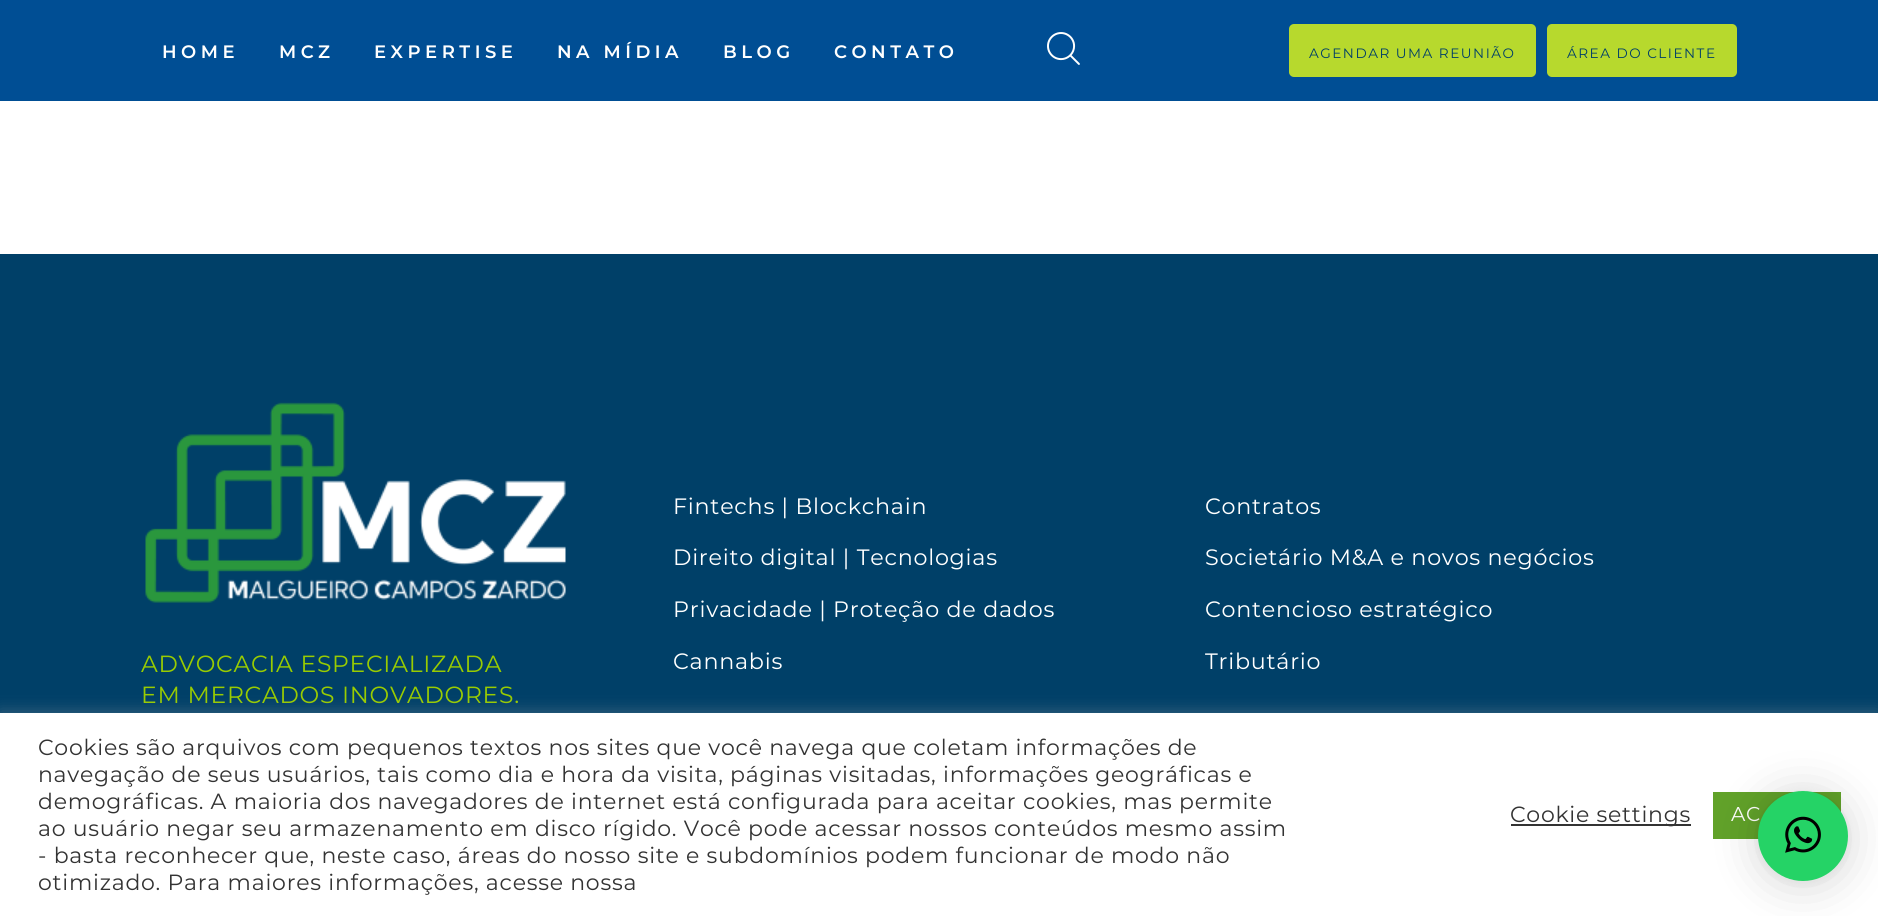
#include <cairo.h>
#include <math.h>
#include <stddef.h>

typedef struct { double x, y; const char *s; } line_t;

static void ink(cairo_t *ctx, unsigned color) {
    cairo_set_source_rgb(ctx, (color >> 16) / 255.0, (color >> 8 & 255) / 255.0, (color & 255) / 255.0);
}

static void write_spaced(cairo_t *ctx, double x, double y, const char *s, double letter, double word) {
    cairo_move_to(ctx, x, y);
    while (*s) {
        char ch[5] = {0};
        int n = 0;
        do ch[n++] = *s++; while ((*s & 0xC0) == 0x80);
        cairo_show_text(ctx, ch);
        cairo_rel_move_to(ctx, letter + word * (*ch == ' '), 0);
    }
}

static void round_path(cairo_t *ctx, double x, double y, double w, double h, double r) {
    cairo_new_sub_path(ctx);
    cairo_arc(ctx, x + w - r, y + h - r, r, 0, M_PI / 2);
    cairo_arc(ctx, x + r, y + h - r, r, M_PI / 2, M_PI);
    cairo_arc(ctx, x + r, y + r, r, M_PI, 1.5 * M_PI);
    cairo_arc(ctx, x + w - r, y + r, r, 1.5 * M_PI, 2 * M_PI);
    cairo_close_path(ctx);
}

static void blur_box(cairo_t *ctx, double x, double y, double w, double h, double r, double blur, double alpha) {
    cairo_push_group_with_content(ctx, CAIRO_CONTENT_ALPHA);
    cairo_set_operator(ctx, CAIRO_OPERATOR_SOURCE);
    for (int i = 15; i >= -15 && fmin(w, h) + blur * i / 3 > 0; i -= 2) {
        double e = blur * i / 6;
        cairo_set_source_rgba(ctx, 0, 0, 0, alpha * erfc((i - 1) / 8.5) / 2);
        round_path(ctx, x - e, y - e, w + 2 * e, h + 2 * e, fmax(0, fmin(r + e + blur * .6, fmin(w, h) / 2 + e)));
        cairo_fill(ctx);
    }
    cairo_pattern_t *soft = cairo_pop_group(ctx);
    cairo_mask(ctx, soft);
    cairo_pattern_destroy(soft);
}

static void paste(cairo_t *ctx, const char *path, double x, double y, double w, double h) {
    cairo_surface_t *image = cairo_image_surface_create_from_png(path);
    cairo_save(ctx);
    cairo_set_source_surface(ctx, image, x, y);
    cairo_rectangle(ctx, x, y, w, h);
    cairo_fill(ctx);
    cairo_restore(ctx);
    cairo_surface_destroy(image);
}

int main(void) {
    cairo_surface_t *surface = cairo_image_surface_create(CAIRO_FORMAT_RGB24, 1878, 916);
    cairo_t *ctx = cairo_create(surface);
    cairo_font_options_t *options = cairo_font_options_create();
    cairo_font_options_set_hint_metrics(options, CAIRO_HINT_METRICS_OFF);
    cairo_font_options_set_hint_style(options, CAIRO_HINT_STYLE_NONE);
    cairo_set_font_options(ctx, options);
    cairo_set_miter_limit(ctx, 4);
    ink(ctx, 0xFFFFFF);
    cairo_paint(ctx);
    ink(ctx, 0x004E94);
    cairo_rectangle(ctx, 0, 0, 1878, 101);
    cairo_fill(ctx);
    cairo_select_font_face(ctx, "Montserrat SemiBold", CAIRO_FONT_SLANT_NORMAL, CAIRO_FONT_WEIGHT_NORMAL);
    cairo_set_font_size(ctx, 18);
    ink(ctx, 0xFFFFFF);
    {
        static const line_t items[] = {
            {162, 58, "HOME"},
            {279, 58, "MCZ"},
            {374, 58, "EXPERTISE"},
            {557, 58, "NA MÍDIA"},
            {723, 58, "BLOG"},
            {834, 58, "CONTATO"},
        };
        for (size_t i = 0; i < sizeof items / sizeof *items; i++) {
            write_spaced(ctx, items[i].x, items[i].y, items[i].s, 4.5, 0);
        }
    }
    paste(ctx, "media/1.png", 1047, 32, 33, 33);
    ink(ctx, 0xB7D92D);
    round_path(ctx, 1289, 24, 247, 53, 5);
    cairo_fill(ctx);
    cairo_select_font_face(ctx, "Montserrat", CAIRO_FONT_SLANT_NORMAL, CAIRO_FONT_WEIGHT_NORMAL);
    cairo_set_font_size(ctx, 13.6);
    ink(ctx, 0x003F68);
    write_spaced(ctx, 1309, 58, "AGENDAR UMA REUNIÃO", 1.5, 0);
    ink(ctx, 0xB7D92D);
    round_path(ctx, 1547, 24, 190, 53, 5);
    cairo_fill(ctx);
    ink(ctx, 0x003F68);
    write_spaced(ctx, 1567, 58, "ÁREA DO CLIENTE", 1.5, 0);
    ink(ctx, 0x004068);
    cairo_rectangle(ctx, 0, 254, 1878, 459);
    cairo_fill(ctx);
    cairo_set_font_size(ctx, 22.25);
    ink(ctx, 0xFFFFFF);
    {
        static const line_t items[] = {
            {673, 514, "Fintechs | Blockchain"},
            {673, 565, "Direito digital | Tecnologias"},
            {673, 617, "Privacidade | Proteção de dados"},
            {673, 669, "Cannabis"},
            {1205, 514, "Contratos"},
            {1205, 565, "Societário M&A e novos negócios"},
            {1205, 617, "Contencioso estratégico"},
            {1205, 669, "Tributário"},
        };
        for (size_t i = 0; i < sizeof items / sizeof *items; i++) {
            write_spaced(ctx, items[i].x, items[i].y, items[i].s, 0.75, 0);
        }
    }
    paste(ctx, "media/2.png", 145, 402, 421, 201);
    cairo_set_font_size(ctx, 23.4);
    ink(ctx, 0x99CC00);
    write_spaced(ctx, 141, 672, "ADVOCACIA ESPECIALIZADA", 0.75, 0);
    write_spaced(ctx, 141, 703, "EM MERCADOS INOVADORES.", 0.75, 0);
    ink(ctx, 0xACABAB);
    blur_box(ctx, 0, 711, 1878, 204, 0, 7.5, 0.3);
    ink(ctx, 0xFFFFFF);
    cairo_rectangle(ctx, 0, 713, 1878, 203);
    cairo_fill(ctx);
    cairo_set_font_size(ctx, 22);
    ink(ctx, 0x333333);
    {
        static const line_t items[] = {
            {38, 755, "Cookies são arquivos com pequenos textos nos sites que você navega que coletam informações de"},
            {38, 782, "navegação de seus usuários, tais como dia e hora da visita, páginas visitadas, informações geográficas e"},
            {38, 809, "demográficas. A maioria dos navegadores de internet está configurada para aceitar cookies, mas permite"},
            {38, 836, "ao usuário negar seu armazenamento em disco rígido. Você pode acessar nossos conteúdos mesmo assim"},
            {38, 863, "- basta reconhecer que, neste caso, áreas do nosso site e subdomínios podem funcionar de modo não"},
            {38, 890, "otimizado. Para maiores informações, acesse nossa"},
        };
        for (size_t i = 0; i < sizeof items / sizeof *items; i++) {
            write_spaced(ctx, items[i].x, items[i].y, items[i].s, 0.75, 0);
        }
    }
    cairo_rectangle(ctx, 1511, 824, 180, 2);
    cairo_fill(ctx);
    write_spaced(ctx, 1510, 822, "Cookie settings", 0.75, 0);
    ink(ctx, 0x61A229);
    cairo_rectangle(ctx, 1713, 792, 128, 47);
    cairo_fill(ctx);
    cairo_set_font_size(ctx, 20);
    ink(ctx, 0xFFFFFF);
    write_spaced(ctx, 1731, 821, "AC", 0.75, 0);
    ink(ctx, 0x000000);
    blur_box(ctx, 1758, 794, 90, 90, 45, 24, 0.16);
    blur_box(ctx, 1758, 792, 90, 90, 45, 4.5, 0.06);
    ink(ctx, 0x25D366);
    cairo_arc(ctx, 1803, 836, 45, 0, 2 * M_PI);
    cairo_fill(ctx);
    paste(ctx, "media/3.png", 1785, 816, 36, 37);
    cairo_surface_write_to_png(surface, "image.png");
    cairo_font_options_destroy(options);
    cairo_destroy(ctx);
    cairo_surface_destroy(surface);
    return 0;
}
